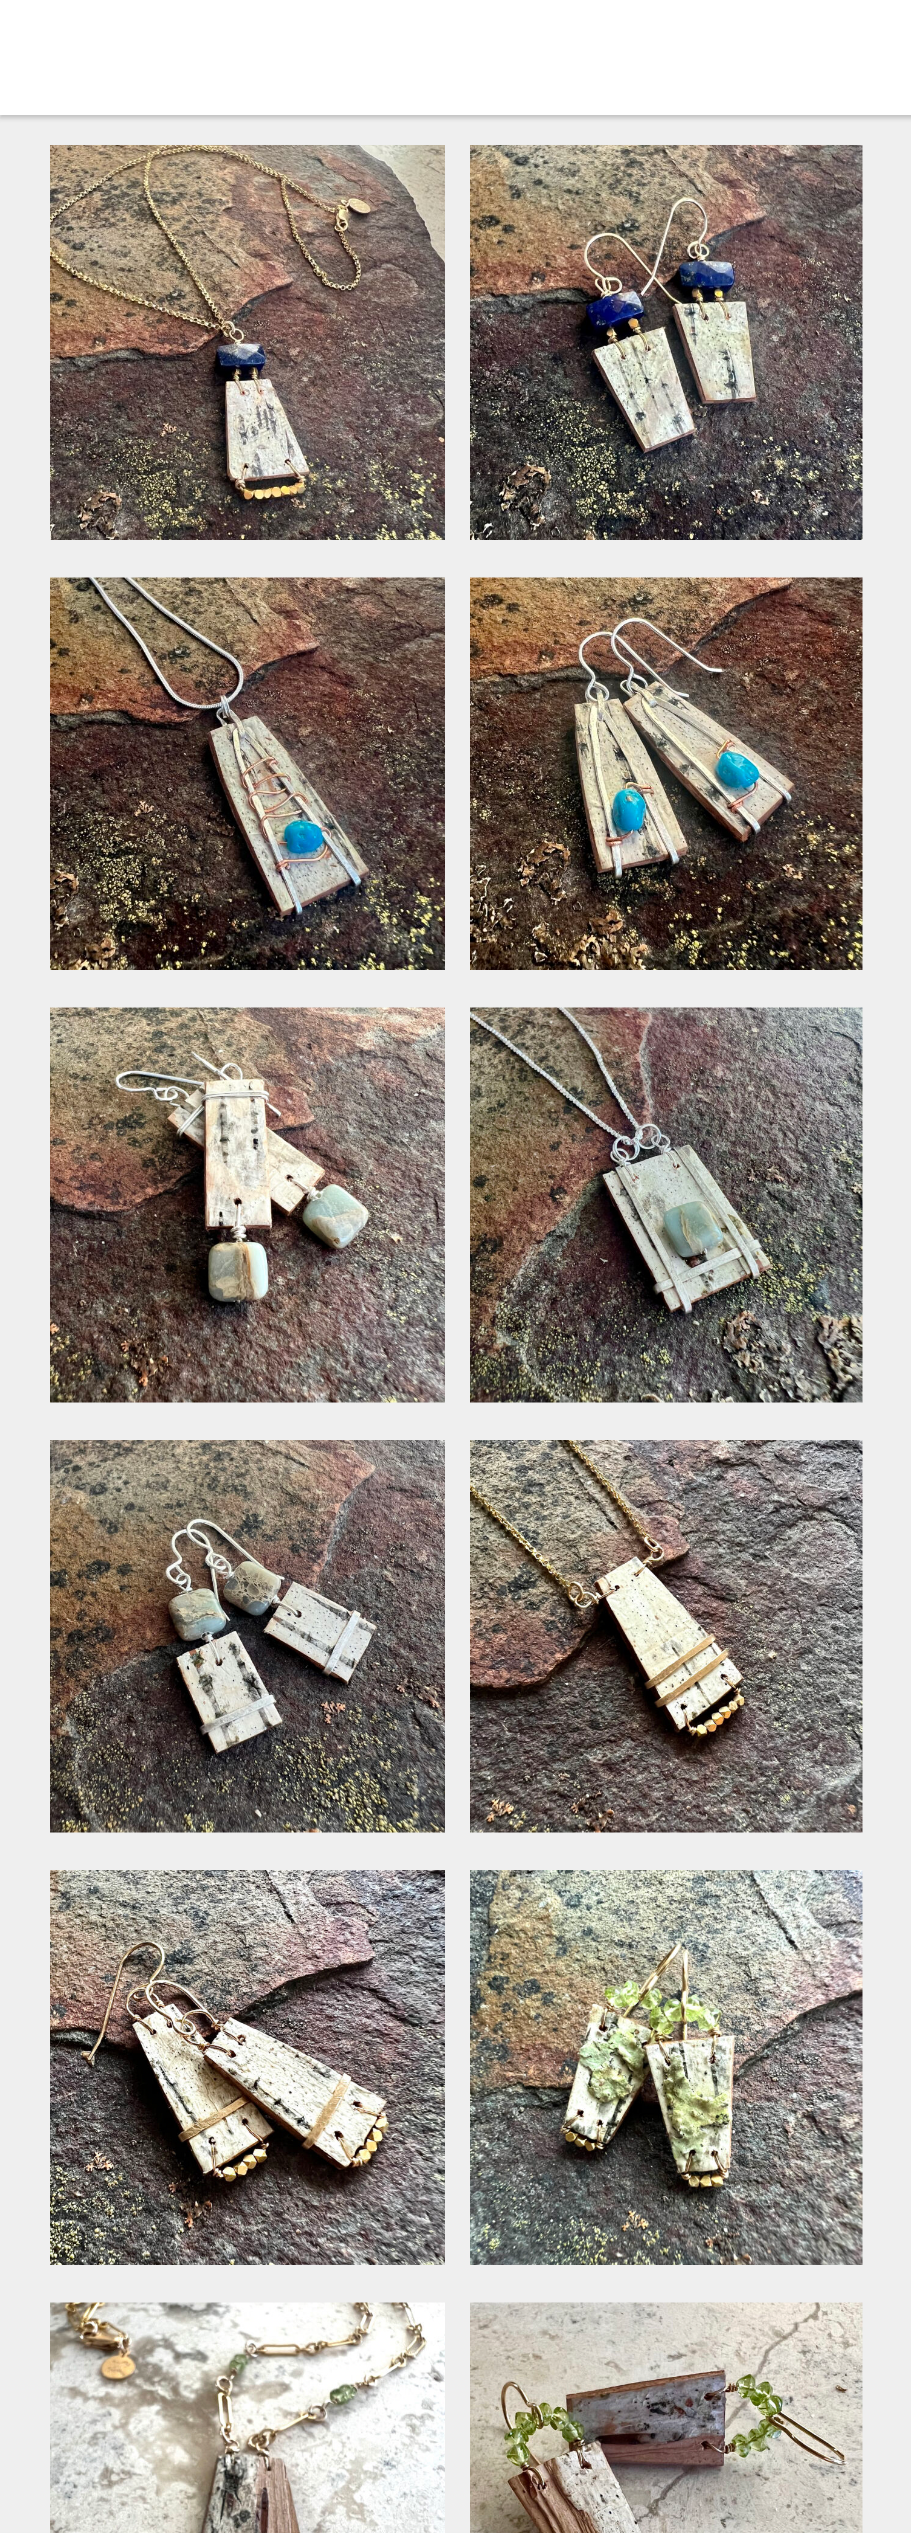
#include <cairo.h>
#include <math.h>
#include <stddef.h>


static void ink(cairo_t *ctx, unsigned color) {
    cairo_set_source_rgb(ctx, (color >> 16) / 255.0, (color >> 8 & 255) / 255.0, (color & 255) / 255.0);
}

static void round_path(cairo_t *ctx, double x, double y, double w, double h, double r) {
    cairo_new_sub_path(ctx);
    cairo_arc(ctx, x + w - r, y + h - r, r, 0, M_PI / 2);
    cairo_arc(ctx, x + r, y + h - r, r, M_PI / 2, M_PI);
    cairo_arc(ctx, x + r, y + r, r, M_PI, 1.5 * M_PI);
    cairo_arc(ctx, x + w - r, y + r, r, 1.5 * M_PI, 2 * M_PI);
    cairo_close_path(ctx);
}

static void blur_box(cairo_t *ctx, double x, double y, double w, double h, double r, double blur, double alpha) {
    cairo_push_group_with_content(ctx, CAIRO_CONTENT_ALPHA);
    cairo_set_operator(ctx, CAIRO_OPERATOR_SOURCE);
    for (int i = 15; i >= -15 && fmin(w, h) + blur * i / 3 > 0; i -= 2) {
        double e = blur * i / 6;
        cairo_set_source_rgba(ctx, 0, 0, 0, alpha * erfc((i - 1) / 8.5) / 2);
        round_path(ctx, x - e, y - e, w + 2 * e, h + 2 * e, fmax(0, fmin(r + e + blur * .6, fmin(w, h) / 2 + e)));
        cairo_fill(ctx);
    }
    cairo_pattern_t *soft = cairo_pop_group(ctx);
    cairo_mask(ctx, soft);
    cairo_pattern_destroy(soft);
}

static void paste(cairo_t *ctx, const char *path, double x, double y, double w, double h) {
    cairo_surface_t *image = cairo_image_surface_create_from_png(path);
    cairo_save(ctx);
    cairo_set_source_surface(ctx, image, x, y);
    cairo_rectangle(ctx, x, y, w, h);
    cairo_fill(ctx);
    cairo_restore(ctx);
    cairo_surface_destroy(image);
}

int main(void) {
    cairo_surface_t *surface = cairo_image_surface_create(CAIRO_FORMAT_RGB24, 911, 2533);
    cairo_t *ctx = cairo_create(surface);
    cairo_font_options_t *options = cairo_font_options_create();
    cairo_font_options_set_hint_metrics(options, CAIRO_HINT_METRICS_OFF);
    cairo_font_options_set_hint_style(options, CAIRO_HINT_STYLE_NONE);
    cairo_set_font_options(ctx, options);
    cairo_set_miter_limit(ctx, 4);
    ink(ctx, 0xEFEFEF);
    cairo_paint(ctx);
    ink(ctx, 0x000000);
    blur_box(ctx, 0, 3, 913, 115, 0, 2.5, 0.2);
    ink(ctx, 0xFFFFFF);
    cairo_rectangle(ctx, 0, 0, 911, 115);
    cairo_fill(ctx);
    paste(ctx, "media/1.png", 50, 145, 395, 395);
    paste(ctx, "media/2.png", 470, 145, 393, 395);
    paste(ctx, "media/3.png", 50, 577, 395, 393);
    paste(ctx, "media/4.png", 470, 577, 393, 393);
    paste(ctx, "media/5.png", 50, 1007, 395, 396);
    paste(ctx, "media/6.png", 470, 1007, 393, 396);
    paste(ctx, "media/7.png", 50, 1440, 395, 393);
    paste(ctx, "media/8.png", 470, 1440, 393, 393);
    paste(ctx, "media/9.png", 50, 1870, 395, 395);
    paste(ctx, "media/10.png", 470, 1870, 393, 395);
    paste(ctx, "media/11.png", 50, 2302, 395, 231);
    paste(ctx, "media/12.png", 470, 2302, 393, 231);
    cairo_surface_write_to_png(surface, "image.png");
    cairo_font_options_destroy(options);
    cairo_destroy(ctx);
    cairo_surface_destroy(surface);
    return 0;
}
